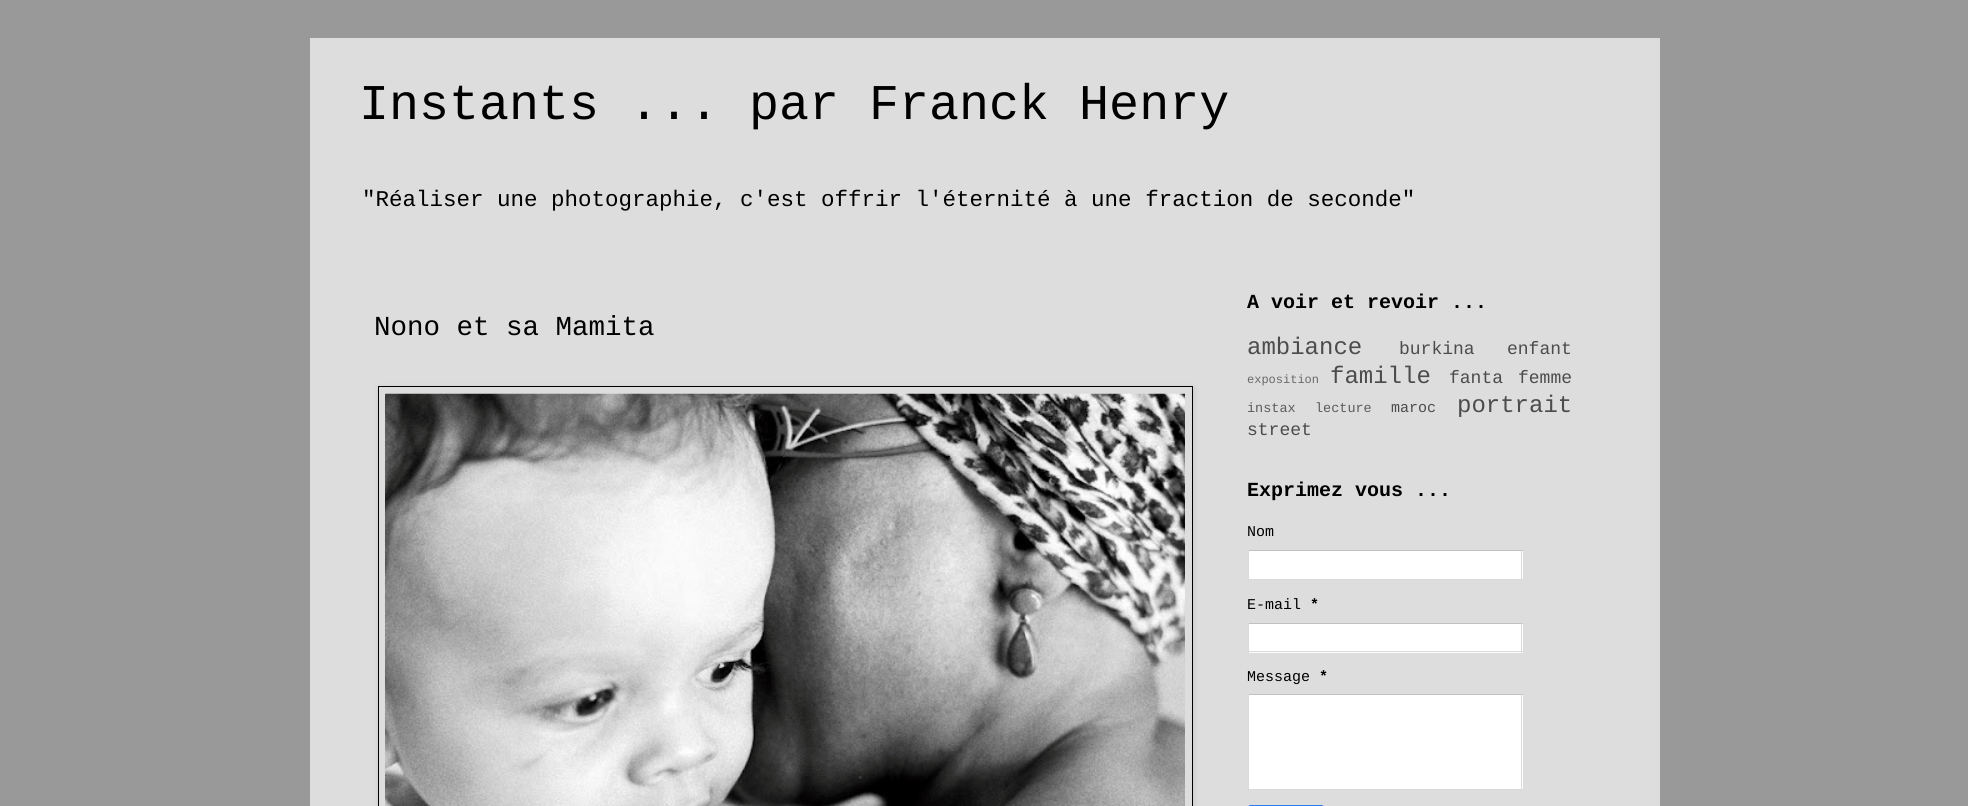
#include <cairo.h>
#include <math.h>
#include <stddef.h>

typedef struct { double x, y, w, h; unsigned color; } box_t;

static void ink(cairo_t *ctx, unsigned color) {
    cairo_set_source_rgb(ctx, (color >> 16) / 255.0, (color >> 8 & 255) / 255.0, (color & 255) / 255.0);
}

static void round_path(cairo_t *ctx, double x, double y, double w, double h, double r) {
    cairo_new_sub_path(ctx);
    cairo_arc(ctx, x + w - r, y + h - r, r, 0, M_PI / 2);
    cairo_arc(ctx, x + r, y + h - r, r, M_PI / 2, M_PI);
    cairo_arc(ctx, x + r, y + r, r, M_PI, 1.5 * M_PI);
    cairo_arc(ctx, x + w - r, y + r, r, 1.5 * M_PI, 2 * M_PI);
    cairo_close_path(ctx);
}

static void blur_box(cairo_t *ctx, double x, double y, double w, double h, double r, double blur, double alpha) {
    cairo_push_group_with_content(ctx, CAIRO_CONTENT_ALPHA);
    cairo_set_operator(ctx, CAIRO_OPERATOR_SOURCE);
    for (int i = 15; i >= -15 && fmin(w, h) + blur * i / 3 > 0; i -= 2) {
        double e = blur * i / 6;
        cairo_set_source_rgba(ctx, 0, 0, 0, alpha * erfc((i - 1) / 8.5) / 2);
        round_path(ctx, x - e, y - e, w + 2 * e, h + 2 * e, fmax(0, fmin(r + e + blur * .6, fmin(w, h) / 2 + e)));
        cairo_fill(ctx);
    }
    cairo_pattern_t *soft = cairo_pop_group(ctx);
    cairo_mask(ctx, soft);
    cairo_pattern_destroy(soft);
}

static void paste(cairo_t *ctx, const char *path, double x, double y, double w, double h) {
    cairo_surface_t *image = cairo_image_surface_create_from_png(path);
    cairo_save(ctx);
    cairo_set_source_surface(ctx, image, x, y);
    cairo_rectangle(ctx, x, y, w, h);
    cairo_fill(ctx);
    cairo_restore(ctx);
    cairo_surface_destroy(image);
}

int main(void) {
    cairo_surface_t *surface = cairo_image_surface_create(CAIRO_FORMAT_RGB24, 1968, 806);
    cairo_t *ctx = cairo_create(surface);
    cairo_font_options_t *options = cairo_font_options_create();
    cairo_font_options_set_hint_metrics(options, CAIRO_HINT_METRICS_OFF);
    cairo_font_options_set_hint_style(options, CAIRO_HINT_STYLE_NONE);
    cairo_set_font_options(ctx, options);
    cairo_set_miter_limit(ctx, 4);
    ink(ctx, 0x999999);
    cairo_paint(ctx);
    ink(ctx, 0xDDDDDD);
    cairo_rectangle(ctx, 310, 38, 1350, 768);
    cairo_fill(ctx);
    cairo_select_font_face(ctx, "Liberation Mono", CAIRO_FONT_SLANT_NORMAL, CAIRO_FONT_WEIGHT_NORMAL);
    cairo_set_font_size(ctx, 50);
    ink(ctx, 0x000000);
    cairo_move_to(ctx, 359, 119);
    cairo_show_text(ctx, "Instants ... par Franck Henry");
    cairo_set_font_size(ctx, 22.5);
    cairo_move_to(ctx, 362, 206);
    cairo_show_text(ctx, "\"Réaliser une photographie, c'est offrir l'éternité à une fraction de seconde\"");
    cairo_set_font_size(ctx, 27.5);
    cairo_move_to(ctx, 374, 335);
    cairo_show_text(ctx, "Nono et sa Mamita");
    ink(ctx, 0x000000);
    blur_box(ctx, 379, 388, 815, 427, 0, 3, 0.1);
    ink(ctx, 0xDDDDDD);
    cairo_rectangle(ctx, 378.5, 386.5, 814, 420);
    cairo_fill_preserve(ctx);
    ink(ctx, 0x000000);
    cairo_set_line_width(ctx, 1);
    cairo_stroke(ctx);
    paste(ctx, "media/1.png", 385, 393, 800, 413);
    cairo_select_font_face(ctx, "Liberation Mono", CAIRO_FONT_SLANT_NORMAL, CAIRO_FONT_WEIGHT_BOLD);
    cairo_set_font_size(ctx, 20);
    cairo_move_to(ctx, 1247, 308);
    cairo_show_text(ctx, "A voir et revoir ...");
    cairo_select_font_face(ctx, "Liberation Mono", CAIRO_FONT_SLANT_NORMAL, CAIRO_FONT_WEIGHT_NORMAL);
    cairo_set_font_size(ctx, 24);
    ink(ctx, 0x4C4C4C);
    cairo_move_to(ctx, 1247, 354);
    cairo_show_text(ctx, "ambiance");
    cairo_set_font_size(ctx, 18);
    cairo_move_to(ctx, 1399, 354);
    cairo_show_text(ctx, "burkina");
    cairo_move_to(ctx, 1507, 354);
    cairo_show_text(ctx, "enfant");
    cairo_set_font_size(ctx, 12);
    ink(ctx, 0x696969);
    cairo_move_to(ctx, 1247, 383);
    cairo_show_text(ctx, "exposition");
    cairo_set_font_size(ctx, 24);
    ink(ctx, 0x4C4C4C);
    cairo_move_to(ctx, 1330, 383);
    cairo_show_text(ctx, "famille");
    cairo_set_font_size(ctx, 18);
    cairo_move_to(ctx, 1449, 383);
    cairo_show_text(ctx, "fanta");
    cairo_move_to(ctx, 1518, 383);
    cairo_show_text(ctx, "femme");
    cairo_set_font_size(ctx, 13.5);
    ink(ctx, 0x5B5B5B);
    cairo_move_to(ctx, 1247, 412);
    cairo_show_text(ctx, "instax");
    cairo_move_to(ctx, 1315, 412);
    cairo_show_text(ctx, "lecture");
    cairo_set_font_size(ctx, 15);
    ink(ctx, 0x4C4C4C);
    cairo_move_to(ctx, 1391, 412);
    cairo_show_text(ctx, "maroc");
    cairo_set_font_size(ctx, 24);
    cairo_move_to(ctx, 1457, 412);
    cairo_show_text(ctx, "portrait");
    cairo_set_font_size(ctx, 18);
    cairo_move_to(ctx, 1247, 435);
    cairo_show_text(ctx, "street");
    cairo_select_font_face(ctx, "Liberation Mono", CAIRO_FONT_SLANT_NORMAL, CAIRO_FONT_WEIGHT_BOLD);
    cairo_set_font_size(ctx, 20);
    ink(ctx, 0x000000);
    cairo_move_to(ctx, 1247, 496);
    cairo_show_text(ctx, "Exprimez vous ...");
    cairo_select_font_face(ctx, "Liberation Mono", CAIRO_FONT_SLANT_NORMAL, CAIRO_FONT_WEIGHT_NORMAL);
    cairo_set_font_size(ctx, 15);
    cairo_move_to(ctx, 1247, 536);
    cairo_show_text(ctx, "Nom");
    {
        static const box_t items[] = {
            {1249, 551, 274, 28, 0xFFFFFF},
            {1248, 550, 275, 1, 0xC0C0C0},
            {1521, 550, 1, 30, 0xD9D9D9},
            {1248, 579, 275, 1, 0xD9D9D9},
            {1248, 550, 1, 30, 0xD9D9D9},
        };
        for (size_t i = 0; i < sizeof items / sizeof *items; i++) {
            ink(ctx, items[i].color);
            cairo_rectangle(ctx, items[i].x, items[i].y, items[i].w, items[i].h);
            cairo_fill(ctx);
        }
    }
    ink(ctx, 0x000000);
    cairo_move_to(ctx, 1247, 609);
    cairo_show_text(ctx, "E-mail");
    cairo_select_font_face(ctx, "Liberation Mono", CAIRO_FONT_SLANT_NORMAL, CAIRO_FONT_WEIGHT_BOLD);
    cairo_move_to(ctx, 1310, 609);
    cairo_show_text(ctx, "*");
    {
        static const box_t items[] = {
            {1249, 624, 274, 29, 0xFFFFFF},
            {1248, 623, 275, 1, 0xC0C0C0},
            {1521, 623, 1, 30, 0xD9D9D9},
            {1248, 651, 275, 1, 0xD9D9D9},
            {1248, 623, 1, 30, 0xD9D9D9},
        };
        for (size_t i = 0; i < sizeof items / sizeof *items; i++) {
            ink(ctx, items[i].color);
            cairo_rectangle(ctx, items[i].x, items[i].y, items[i].w, items[i].h);
            cairo_fill(ctx);
        }
    }
    cairo_select_font_face(ctx, "Liberation Mono", CAIRO_FONT_SLANT_NORMAL, CAIRO_FONT_WEIGHT_NORMAL);
    ink(ctx, 0x000000);
    cairo_move_to(ctx, 1247, 681);
    cairo_show_text(ctx, "Message");
    cairo_select_font_face(ctx, "Liberation Mono", CAIRO_FONT_SLANT_NORMAL, CAIRO_FONT_WEIGHT_BOLD);
    cairo_move_to(ctx, 1319, 681);
    cairo_show_text(ctx, "*");
    {
        static const box_t items[] = {
            {1249, 695, 274, 94, 0xFFFFFF},
            {1248, 694, 275, 1, 0xC0C0C0},
            {1521, 694, 1, 96, 0xD9D9D9},
            {1248, 789, 275, 1, 0xD9D9D9},
            {1248, 694, 1, 96, 0xD9D9D9},
        };
        for (size_t i = 0; i < sizeof items / sizeof *items; i++) {
            ink(ctx, items[i].color);
            cairo_rectangle(ctx, items[i].x, items[i].y, items[i].w, items[i].h);
            cairo_fill(ctx);
        }
    }
    round_path(ctx, 1248.5, 805.5, 75, 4, 2);
    ink(ctx, 0x3079ED);
    cairo_stroke(ctx);
    cairo_surface_write_to_png(surface, "image.png");
    cairo_font_options_destroy(options);
    cairo_destroy(ctx);
    cairo_surface_destroy(surface);
    return 0;
}
